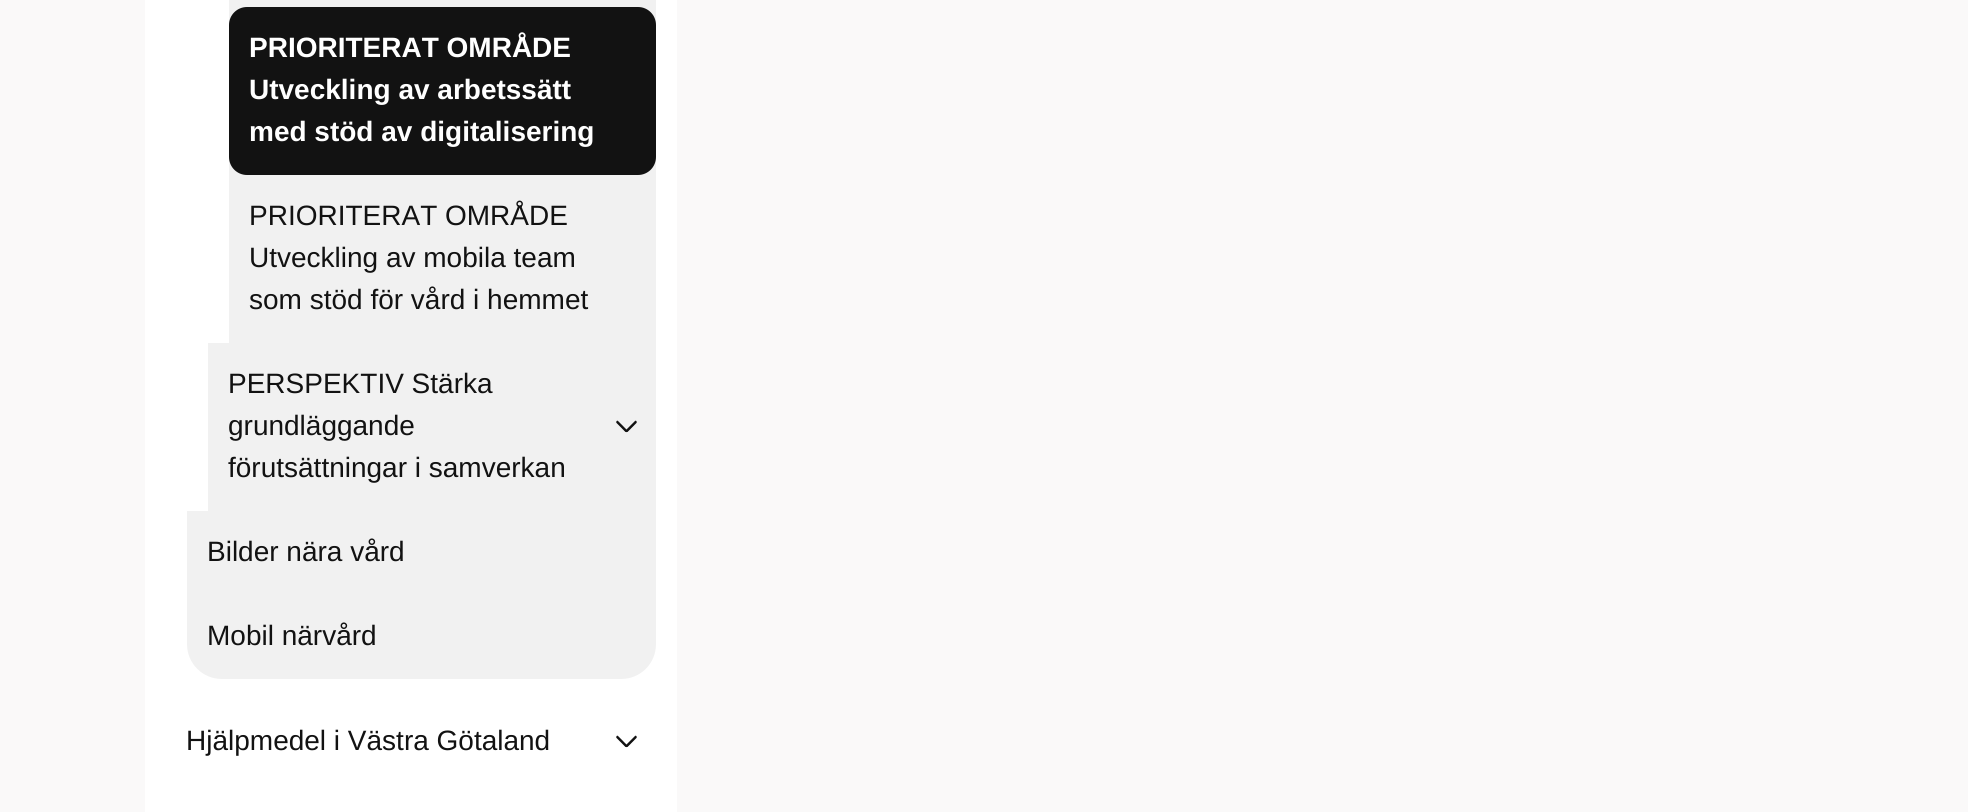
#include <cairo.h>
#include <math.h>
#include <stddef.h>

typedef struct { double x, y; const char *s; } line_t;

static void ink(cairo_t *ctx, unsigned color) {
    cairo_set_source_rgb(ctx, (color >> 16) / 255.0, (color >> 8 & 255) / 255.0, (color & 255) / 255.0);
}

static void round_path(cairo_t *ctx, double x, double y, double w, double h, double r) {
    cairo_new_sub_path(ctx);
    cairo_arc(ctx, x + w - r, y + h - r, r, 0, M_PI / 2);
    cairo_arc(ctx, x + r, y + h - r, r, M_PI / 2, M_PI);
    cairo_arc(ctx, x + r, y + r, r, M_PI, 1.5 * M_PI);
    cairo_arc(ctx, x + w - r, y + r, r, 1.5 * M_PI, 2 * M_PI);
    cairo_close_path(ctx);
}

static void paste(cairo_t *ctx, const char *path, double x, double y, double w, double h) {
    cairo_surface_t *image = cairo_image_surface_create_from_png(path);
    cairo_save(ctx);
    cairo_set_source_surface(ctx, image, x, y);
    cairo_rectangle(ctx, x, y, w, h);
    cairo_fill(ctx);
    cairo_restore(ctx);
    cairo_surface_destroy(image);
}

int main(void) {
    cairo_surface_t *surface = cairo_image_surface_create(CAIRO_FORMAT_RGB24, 1968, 812);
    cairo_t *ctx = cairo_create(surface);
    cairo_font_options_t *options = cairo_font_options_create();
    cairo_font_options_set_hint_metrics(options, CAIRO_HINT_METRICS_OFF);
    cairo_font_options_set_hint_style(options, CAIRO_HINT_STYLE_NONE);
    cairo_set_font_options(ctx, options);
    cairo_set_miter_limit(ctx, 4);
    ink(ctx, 0xFAF9F9);
    cairo_paint(ctx);
    ink(ctx, 0xFFFFFF);
    cairo_rectangle(ctx, 145, 0, 532, 812);
    cairo_fill(ctx);
    ink(ctx, 0xF1F1F1);
    cairo_rectangle(ctx, 229, 0, 427, 343);
    cairo_fill(ctx);
    ink(ctx, 0x121212);
    round_path(ctx, 229, 7, 427, 168, 18);
    cairo_fill(ctx);
    cairo_select_font_face(ctx, "Liberation Sans", CAIRO_FONT_SLANT_NORMAL, CAIRO_FONT_WEIGHT_BOLD);
    cairo_set_font_size(ctx, 28);
    ink(ctx, 0xFFFFFF);
    {
        static const line_t items[] = {
            {249, 57, "PRIORITERAT OMRÅDE"},
            {249, 99, "Utveckling av arbetssätt"},
            {249, 141, "med stöd av digitalisering"},
        };
        for (size_t i = 0; i < sizeof items / sizeof *items; i++) {
            cairo_move_to(ctx, items[i].x, items[i].y);
            cairo_show_text(ctx, items[i].s);
        }
    }
    cairo_select_font_face(ctx, "Liberation Sans", CAIRO_FONT_SLANT_NORMAL, CAIRO_FONT_WEIGHT_NORMAL);
    ink(ctx, 0x121212);
    {
        static const line_t items[] = {
            {249, 225, "PRIORITERAT OMRÅDE"},
            {249, 267, "Utveckling av mobila team"},
            {249, 309, "som stöd för vård i hemmet"},
        };
        for (size_t i = 0; i < sizeof items / sizeof *items; i++) {
            cairo_move_to(ctx, items[i].x, items[i].y);
            cairo_show_text(ctx, items[i].s);
        }
    }
    ink(ctx, 0xF1F1F1);
    cairo_rectangle(ctx, 208, 343, 448, 168);
    cairo_fill(ctx);
    ink(ctx, 0x121212);
    {
        static const line_t items[] = {
            {228, 393, "PERSPEKTIV Stärka"},
            {228, 435, "grundläggande"},
            {228, 477, "förutsättningar i samverkan"},
        };
        for (size_t i = 0; i < sizeof items / sizeof *items; i++) {
            cairo_move_to(ctx, items[i].x, items[i].y);
            cairo_show_text(ctx, items[i].s);
        }
    }
    paste(ctx, "media/1.png", 616, 420, 21, 13);
    ink(ctx, 0xF1F1F1);
    cairo_rectangle(ctx, 187, 511, 469, 84);
    cairo_fill(ctx);
    ink(ctx, 0x121212);
    cairo_move_to(ctx, 207, 561);
    cairo_show_text(ctx, "Bilder nära vård");
    ink(ctx, 0xF1F1F1);
    cairo_new_path(ctx);
    cairo_move_to(ctx, 187, 595);
    cairo_line_to(ctx, 656, 595);
    cairo_line_to(ctx, 656, 644);
    cairo_curve_to(ctx, 656, 663.5, 640.5, 679, 621, 679);
    cairo_line_to(ctx, 222, 679);
    cairo_curve_to(ctx, 202.5, 679, 187, 663.5, 187, 644);
    cairo_close_path(ctx);
    cairo_fill(ctx);
    ink(ctx, 0x121212);
    cairo_move_to(ctx, 207, 645);
    cairo_show_text(ctx, "Mobil närvård");
    cairo_move_to(ctx, 186, 750);
    cairo_show_text(ctx, "Hjälpmedel i Västra Götaland");
    paste(ctx, "media/2.png", 616, 735, 21, 13);
    cairo_surface_write_to_png(surface, "image.png");
    cairo_font_options_destroy(options);
    cairo_destroy(ctx);
    cairo_surface_destroy(surface);
    return 0;
}
